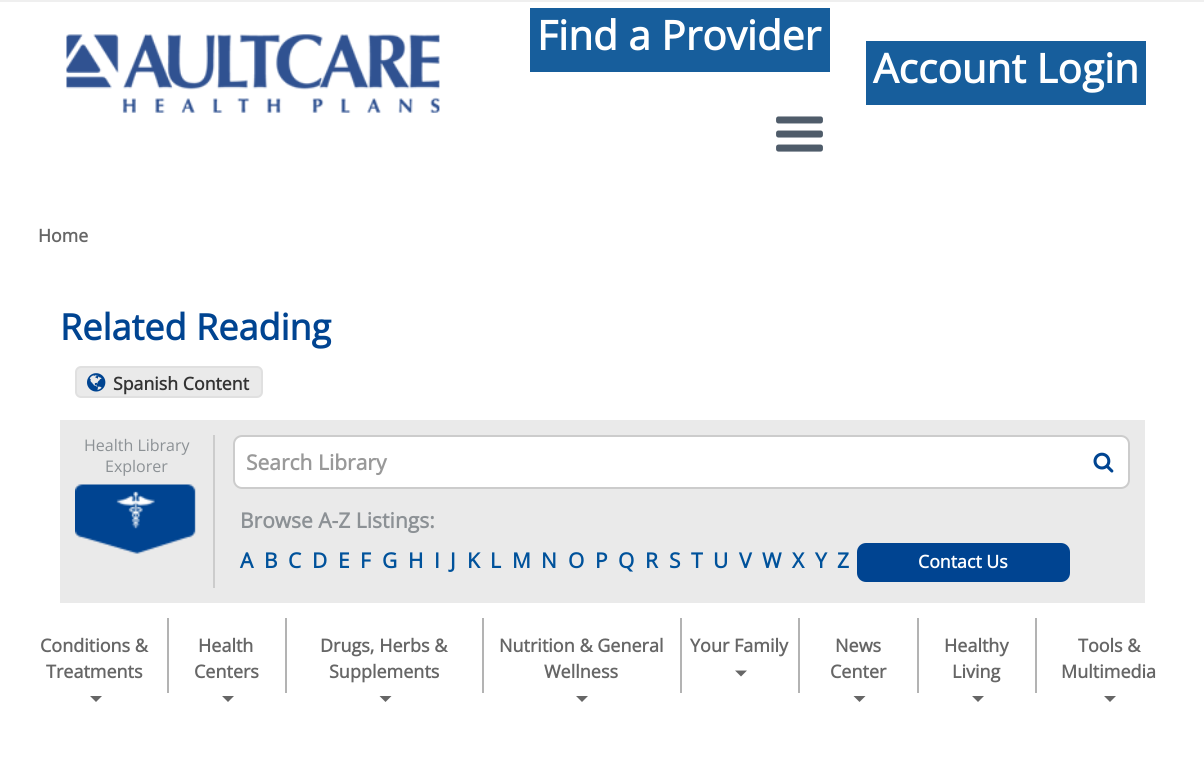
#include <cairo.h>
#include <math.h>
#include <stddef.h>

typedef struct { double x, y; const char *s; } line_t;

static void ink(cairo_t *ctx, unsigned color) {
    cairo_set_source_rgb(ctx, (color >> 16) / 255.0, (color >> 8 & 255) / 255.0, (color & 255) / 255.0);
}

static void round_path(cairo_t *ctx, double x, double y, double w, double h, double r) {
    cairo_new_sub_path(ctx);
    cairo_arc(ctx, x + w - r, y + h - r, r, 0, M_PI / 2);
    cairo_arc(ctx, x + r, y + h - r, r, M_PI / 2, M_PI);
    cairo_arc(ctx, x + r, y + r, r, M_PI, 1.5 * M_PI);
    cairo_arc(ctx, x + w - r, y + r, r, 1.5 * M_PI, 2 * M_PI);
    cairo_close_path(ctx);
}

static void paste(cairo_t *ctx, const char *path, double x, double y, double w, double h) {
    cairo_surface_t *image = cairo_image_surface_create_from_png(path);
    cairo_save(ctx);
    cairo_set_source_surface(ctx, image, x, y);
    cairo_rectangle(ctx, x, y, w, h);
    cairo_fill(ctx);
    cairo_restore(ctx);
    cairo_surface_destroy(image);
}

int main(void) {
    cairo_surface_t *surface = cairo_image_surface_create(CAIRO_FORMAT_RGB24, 1204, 768);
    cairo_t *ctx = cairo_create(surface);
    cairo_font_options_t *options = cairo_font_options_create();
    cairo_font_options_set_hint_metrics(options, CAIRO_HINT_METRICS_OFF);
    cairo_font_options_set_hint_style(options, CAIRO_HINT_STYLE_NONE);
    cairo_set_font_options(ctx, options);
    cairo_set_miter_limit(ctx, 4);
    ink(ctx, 0xEFEFEF);
    cairo_paint(ctx);
    ink(ctx, 0xFFFFFF);
    cairo_rectangle(ctx, 0, 2, 1204, 766);
    cairo_fill(ctx);
    paste(ctx, "media/1.png", 66, 34, 374, 79);
    ink(ctx, 0x175E9C);
    cairo_rectangle(ctx, 530, 8, 300, 64);
    cairo_fill(ctx);
    cairo_select_font_face(ctx, "Open Sans", CAIRO_FONT_SLANT_NORMAL, CAIRO_FONT_WEIGHT_BOLD);
    cairo_set_font_size(ctx, 40.5);
    ink(ctx, 0xFFFFFF);
    cairo_move_to(ctx, 537, 50);
    cairo_show_text(ctx, "Find a Provider");
    ink(ctx, 0x175E9C);
    cairo_rectangle(ctx, 866, 41, 280, 64);
    cairo_fill(ctx);
    ink(ctx, 0xFFFFFF);
    cairo_move_to(ctx, 873, 83);
    cairo_show_text(ctx, "Account Login");
    paste(ctx, "media/2.png", 776, 116, 47, 36);
    cairo_set_font_size(ctx, 17.75);
    ink(ctx, 0x666666);
    cairo_move_to(ctx, 38, 242);
    cairo_show_text(ctx, "Home");
    cairo_set_font_size(ctx, 36);
    ink(ctx, 0x004491);
    cairo_move_to(ctx, 60, 340);
    cairo_show_text(ctx, "Related Reading");
    ink(ctx, 0xEAEAEA);
    round_path(ctx, 76, 367, 186, 30, 5);
    cairo_fill_preserve(ctx);
    ink(ctx, 0xE0E0E0);
    cairo_stroke(ctx);
    paste(ctx, "media/3.png", 87, 373, 19, 19);
    cairo_set_font_size(ctx, 17.75);
    ink(ctx, 0x333333);
    cairo_move_to(ctx, 113, 390);
    cairo_show_text(ctx, "Spanish Content");
    ink(ctx, 0xEAEAEA);
    cairo_rectangle(ctx, 60, 420, 1085, 183);
    cairo_fill(ctx);
    cairo_select_font_face(ctx, "Open Sans", CAIRO_FONT_SLANT_NORMAL, CAIRO_FONT_WEIGHT_NORMAL);
    cairo_set_font_size(ctx, 16);
    ink(ctx, 0x8C9195);
    cairo_move_to(ctx, 84, 451);
    cairo_show_text(ctx, "Health Library");
    cairo_move_to(ctx, 105, 472);
    cairo_show_text(ctx, "Explorer");
    paste(ctx, "media/4.png", 75, 484, 121, 70);
    ink(ctx, 0xCCCCCC);
    cairo_rectangle(ctx, 213, 435, 2, 153);
    cairo_fill(ctx);
    ink(ctx, 0xFFFFFF);
    round_path(ctx, 234, 436, 895, 52, 8);
    cairo_fill_preserve(ctx);
    ink(ctx, 0xCCCCCC);
    cairo_stroke(ctx);
    cairo_select_font_face(ctx, "Open Sans", CAIRO_FONT_SLANT_NORMAL, CAIRO_FONT_WEIGHT_BOLD);
    cairo_set_font_size(ctx, 21);
    ink(ctx, 0x999999);
    cairo_move_to(ctx, 246, 470);
    cairo_show_text(ctx, "Search Library");
    paste(ctx, "media/5.png", 1093, 452, 21, 21);
    ink(ctx, 0x8C9195);
    cairo_move_to(ctx, 240, 528);
    cairo_show_text(ctx, "Browse A-Z Listings:");
    ink(ctx, 0x00529B);
    {
        static const line_t items[] = {
            {240, 568, "A"},
            {264, 568, "B"},
            {288, 568, "C"},
            {312, 568, "D"},
            {338, 568, "E"},
            {360, 568, "F"},
            {382, 568, "G"},
            {408, 568, "H"},
            {434, 568, "I"},
            {450, 568, "J"},
            {467, 568, "K"},
            {490, 568, "L"},
            {512, 568, "M"},
            {541, 568, "N"},
            {568, 568, "O"},
            {595, 568, "P"},
            {618, 568, "Q"},
            {645, 568, "R"},
            {669, 568, "S"},
            {691, 568, "T"},
            {713, 568, "U"},
            {739, 568, "V"},
            {762, 568, "W"},
            {792, 568, "X"},
            {815, 568, "Y"},
            {837, 568, "Z"},
        };
        for (size_t i = 0; i < sizeof items / sizeof *items; i++) {
            cairo_move_to(ctx, items[i].x, items[i].y);
            cairo_show_text(ctx, items[i].s);
        }
    }
    ink(ctx, 0x004491);
    round_path(ctx, 857, 543, 213, 39, 9);
    cairo_fill(ctx);
    cairo_set_font_size(ctx, 17.75);
    ink(ctx, 0xFFFFFF);
    cairo_move_to(ctx, 918, 568);
    cairo_show_text(ctx, "Contact Us");
    ink(ctx, 0xB3B3B3);
    cairo_rectangle(ctx, 167, 618, 2, 75);
    cairo_fill(ctx);
    cairo_set_font_size(ctx, 18);
    ink(ctx, 0x666666);
    cairo_move_to(ctx, 40, 652);
    cairo_show_text(ctx, "Conditions &");
    cairo_move_to(ctx, 46, 678);
    cairo_show_text(ctx, "Treatments");
    cairo_new_path(ctx);
    cairo_move_to(ctx, 90, 696);
    cairo_line_to(ctx, 102, 696);
    cairo_line_to(ctx, 96, 702);
    cairo_close_path(ctx);
    cairo_fill(ctx);
    ink(ctx, 0xB3B3B3);
    cairo_rectangle(ctx, 285, 618, 2, 75);
    cairo_fill(ctx);
    ink(ctx, 0x666666);
    cairo_move_to(ctx, 198, 652);
    cairo_show_text(ctx, "Health");
    cairo_move_to(ctx, 194, 678);
    cairo_show_text(ctx, "Centers");
    cairo_new_path(ctx);
    cairo_move_to(ctx, 222, 696);
    cairo_line_to(ctx, 234, 696);
    cairo_line_to(ctx, 228, 702);
    cairo_close_path(ctx);
    cairo_fill(ctx);
    ink(ctx, 0xB3B3B3);
    cairo_rectangle(ctx, 482, 618, 2, 75);
    cairo_fill(ctx);
    ink(ctx, 0x666666);
    cairo_move_to(ctx, 320, 652);
    cairo_show_text(ctx, "Drugs, Herbs &");
    cairo_move_to(ctx, 329, 678);
    cairo_show_text(ctx, "Supplements");
    cairo_new_path(ctx);
    cairo_move_to(ctx, 379.5, 696);
    cairo_line_to(ctx, 391.5, 696);
    cairo_line_to(ctx, 385.5, 702);
    cairo_close_path(ctx);
    cairo_fill(ctx);
    ink(ctx, 0xB3B3B3);
    cairo_rectangle(ctx, 680, 618, 2, 75);
    cairo_fill(ctx);
    ink(ctx, 0x666666);
    cairo_move_to(ctx, 499, 652);
    cairo_show_text(ctx, "Nutrition & General");
    cairo_move_to(ctx, 544, 678);
    cairo_show_text(ctx, "Wellness");
    cairo_new_path(ctx);
    cairo_move_to(ctx, 576, 696);
    cairo_line_to(ctx, 588, 696);
    cairo_line_to(ctx, 582, 702);
    cairo_close_path(ctx);
    cairo_fill(ctx);
    ink(ctx, 0xB3B3B3);
    cairo_rectangle(ctx, 798, 618, 2, 75);
    cairo_fill(ctx);
    ink(ctx, 0x666666);
    cairo_move_to(ctx, 690, 652);
    cairo_show_text(ctx, "Your Family");
    cairo_new_path(ctx);
    cairo_move_to(ctx, 735, 670.5);
    cairo_line_to(ctx, 747, 670.5);
    cairo_line_to(ctx, 741, 676.5);
    cairo_close_path(ctx);
    cairo_fill(ctx);
    ink(ctx, 0xB3B3B3);
    cairo_rectangle(ctx, 917, 618, 2, 75);
    cairo_fill(ctx);
    ink(ctx, 0x666666);
    cairo_move_to(ctx, 835, 652);
    cairo_show_text(ctx, "News");
    cairo_move_to(ctx, 830, 678);
    cairo_show_text(ctx, "Center");
    cairo_new_path(ctx);
    cairo_move_to(ctx, 853.5, 696);
    cairo_line_to(ctx, 865.5, 696);
    cairo_line_to(ctx, 859.5, 702);
    cairo_close_path(ctx);
    cairo_fill(ctx);
    ink(ctx, 0xB3B3B3);
    cairo_rectangle(ctx, 1035, 618, 2, 75);
    cairo_fill(ctx);
    ink(ctx, 0x666666);
    cairo_move_to(ctx, 944, 652);
    cairo_show_text(ctx, "Healthy");
    cairo_move_to(ctx, 952, 678);
    cairo_show_text(ctx, "Living");
    cairo_new_path(ctx);
    cairo_move_to(ctx, 972, 696);
    cairo_line_to(ctx, 984, 696);
    cairo_line_to(ctx, 978, 702);
    cairo_close_path(ctx);
    cairo_fill(ctx);
    cairo_move_to(ctx, 1078, 652);
    cairo_show_text(ctx, "Tools &");
    cairo_move_to(ctx, 1061, 678);
    cairo_show_text(ctx, "Multimedia");
    cairo_new_path(ctx);
    cairo_move_to(ctx, 1104, 696);
    cairo_line_to(ctx, 1116, 696);
    cairo_line_to(ctx, 1110, 702);
    cairo_close_path(ctx);
    cairo_fill(ctx);
    cairo_surface_write_to_png(surface, "image.png");
    cairo_font_options_destroy(options);
    cairo_destroy(ctx);
    cairo_surface_destroy(surface);
    return 0;
}
